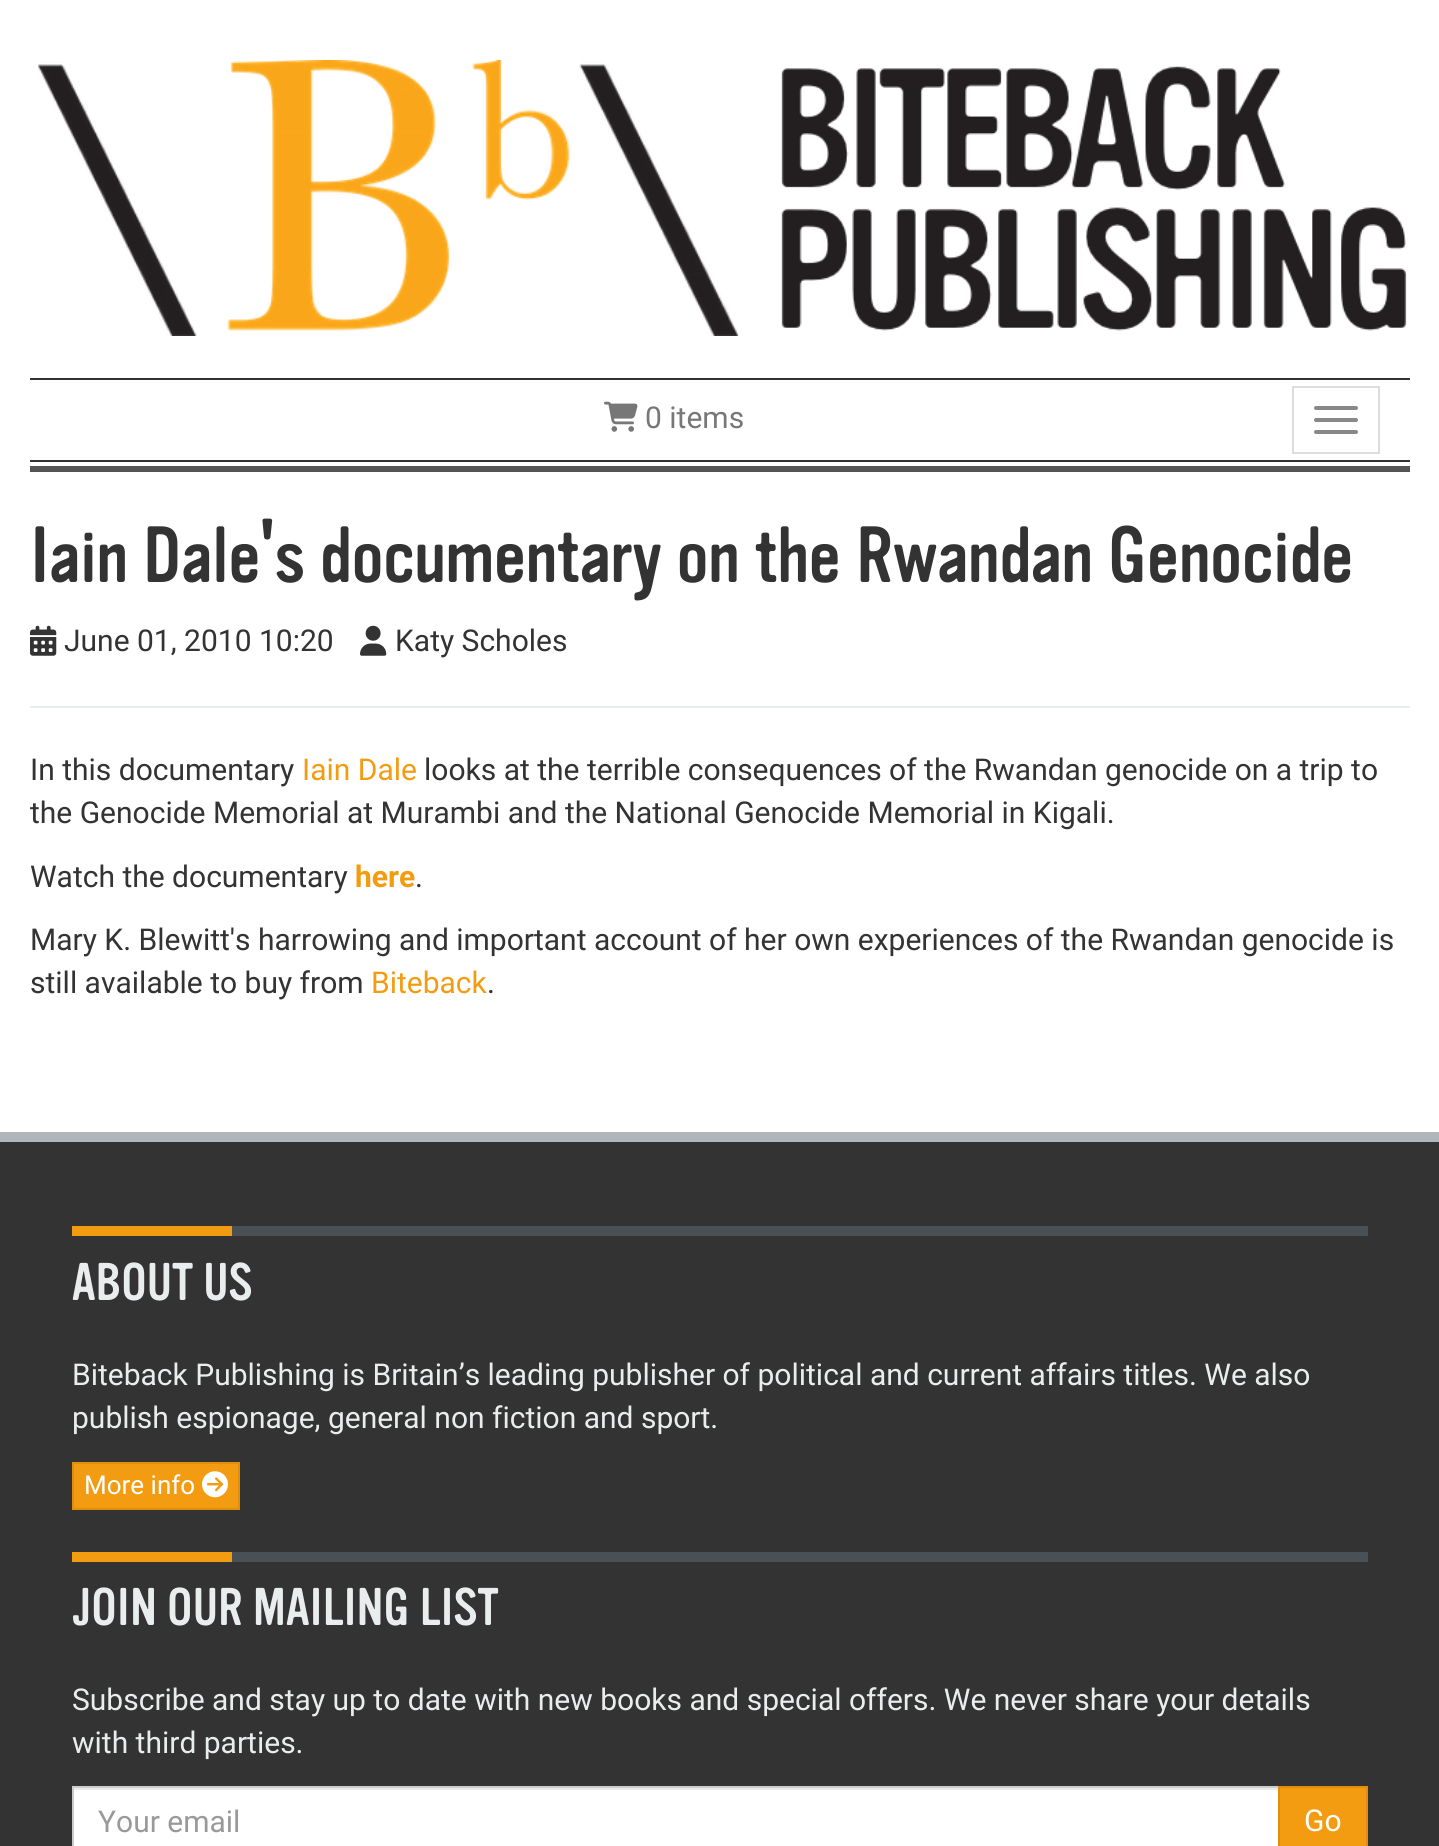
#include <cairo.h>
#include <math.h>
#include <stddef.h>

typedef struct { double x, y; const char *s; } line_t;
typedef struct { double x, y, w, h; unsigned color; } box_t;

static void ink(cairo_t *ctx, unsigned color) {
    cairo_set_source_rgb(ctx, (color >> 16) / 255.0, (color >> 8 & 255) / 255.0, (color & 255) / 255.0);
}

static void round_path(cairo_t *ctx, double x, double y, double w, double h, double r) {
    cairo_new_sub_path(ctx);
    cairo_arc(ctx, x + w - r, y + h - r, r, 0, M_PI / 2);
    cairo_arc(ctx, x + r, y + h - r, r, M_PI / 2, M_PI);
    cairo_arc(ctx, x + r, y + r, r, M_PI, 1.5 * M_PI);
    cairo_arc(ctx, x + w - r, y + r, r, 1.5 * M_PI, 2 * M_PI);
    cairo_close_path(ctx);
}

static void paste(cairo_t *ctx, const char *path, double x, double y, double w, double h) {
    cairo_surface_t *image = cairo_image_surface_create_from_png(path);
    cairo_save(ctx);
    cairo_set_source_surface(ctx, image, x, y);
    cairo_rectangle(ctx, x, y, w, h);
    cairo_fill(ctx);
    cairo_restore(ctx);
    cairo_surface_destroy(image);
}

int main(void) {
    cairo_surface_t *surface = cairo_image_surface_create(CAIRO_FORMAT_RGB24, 1439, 1846);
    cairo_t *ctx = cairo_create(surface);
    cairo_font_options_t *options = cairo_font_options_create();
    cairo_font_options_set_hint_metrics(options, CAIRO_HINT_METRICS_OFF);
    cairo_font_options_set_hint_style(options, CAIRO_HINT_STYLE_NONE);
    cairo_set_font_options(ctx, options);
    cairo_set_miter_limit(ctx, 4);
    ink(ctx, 0xFFFFFF);
    cairo_paint(ctx);
    ink(ctx, 0x555555);
    cairo_rectangle(ctx, 30, 466, 1380, 6);
    cairo_fill(ctx);
    paste(ctx, "media/1.png", 38, 60, 1369, 276);
    ink(ctx, 0x333333);
    cairo_rectangle(ctx, 30, 378, 1380, 2);
    cairo_fill(ctx);
    cairo_rectangle(ctx, 30, 460, 1380, 2);
    cairo_fill(ctx);
    paste(ctx, "media/2.png", 604, 401, 34, 31);
    cairo_select_font_face(ctx, "Roboto", CAIRO_FONT_SLANT_NORMAL, CAIRO_FONT_WEIGHT_NORMAL);
    cairo_set_font_size(ctx, 30);
    ink(ctx, 0x777777);
    cairo_move_to(ctx, 645, 428);
    cairo_show_text(ctx, "0 items");
    cairo_rectangle(ctx, 1293, 387, 86, 66);
    ink(ctx, 0xDDDDDD);
    cairo_stroke(ctx);
    ink(ctx, 0x888888);
    round_path(ctx, 1314, 406, 44, 4, 2);
    cairo_fill(ctx);
    round_path(ctx, 1314, 418, 44, 4, 2);
    cairo_fill(ctx);
    round_path(ctx, 1314, 430, 44, 4, 2);
    cairo_fill(ctx);
    ink(ctx, 0xEAEDEE);
    cairo_rectangle(ctx, 30, 706, 1380, 2);
    cairo_fill(ctx);
    cairo_select_font_face(ctx, "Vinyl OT", CAIRO_FONT_SLANT_NORMAL, CAIRO_FONT_WEIGHT_NORMAL);
    cairo_set_font_size(ctx, 78);
    ink(ctx, 0x333333);
    cairo_move_to(ctx, 30, 582);
    cairo_show_text(ctx, "Iain Dale's documentary on the Rwandan Genocide");
    paste(ctx, "media/3.png", 30, 625, 27, 31);
    cairo_select_font_face(ctx, "Roboto", CAIRO_FONT_SLANT_NORMAL, CAIRO_FONT_WEIGHT_NORMAL);
    cairo_set_font_size(ctx, 30);
    cairo_move_to(ctx, 64, 651);
    cairo_show_text(ctx, "June 01, 2010 10:20");
    paste(ctx, "media/4.png", 360, 625, 27, 31);
    cairo_move_to(ctx, 395, 651);
    cairo_show_text(ctx, "Katy Scholes");
    cairo_move_to(ctx, 30, 780);
    cairo_show_text(ctx, "In this documentary");
    ink(ctx, 0xF39C12);
    cairo_move_to(ctx, 302, 780);
    cairo_show_text(ctx, "Iain Dale");
    ink(ctx, 0x333333);
    {
        static const line_t items[] = {
            {424, 780, "looks at the terrible consequences of the Rwandan genocide on a trip to"},
            {30, 823, "the Genocide Memorial at Murambi and the National Genocide Memorial in Kigali."},
            {30, 887, "Watch the documentary"},
        };
        for (size_t i = 0; i < sizeof items / sizeof *items; i++) {
            cairo_move_to(ctx, items[i].x, items[i].y);
            cairo_show_text(ctx, items[i].s);
        }
    }
    cairo_select_font_face(ctx, "Roboto", CAIRO_FONT_SLANT_NORMAL, CAIRO_FONT_WEIGHT_BOLD);
    ink(ctx, 0xF39C12);
    cairo_move_to(ctx, 355, 887);
    cairo_show_text(ctx, "here");
    cairo_select_font_face(ctx, "Roboto", CAIRO_FONT_SLANT_NORMAL, CAIRO_FONT_WEIGHT_NORMAL);
    ink(ctx, 0x333333);
    {
        static const line_t items[] = {
            {415, 887, "."},
            {30, 950, "Mary K. Blewitt's harrowing and important account of her own experiences of the Rwandan genocide is"},
            {30, 993, "still available to buy from"},
        };
        for (size_t i = 0; i < sizeof items / sizeof *items; i++) {
            cairo_move_to(ctx, items[i].x, items[i].y);
            cairo_show_text(ctx, items[i].s);
        }
    }
    ink(ctx, 0xF39C12);
    cairo_move_to(ctx, 371, 993);
    cairo_show_text(ctx, "Biteback");
    ink(ctx, 0x333333);
    cairo_move_to(ctx, 487, 993);
    cairo_show_text(ctx, ".");
    {
        static const box_t items[] = {
            {0, 1142, 1439, 704, 0x333333},
            {0, 1132, 1439, 10, 0xB0B7BC},
            {232, 1226, 1136, 10, 0x495157},
            {72, 1226, 160, 10, 0xF39C12},
        };
        for (size_t i = 0; i < sizeof items / sizeof *items; i++) {
            ink(ctx, items[i].color);
            cairo_rectangle(ctx, items[i].x, items[i].y, items[i].w, items[i].h);
            cairo_fill(ctx);
        }
    }
    cairo_select_font_face(ctx, "Vinyl OT", CAIRO_FONT_SLANT_NORMAL, CAIRO_FONT_WEIGHT_NORMAL);
    cairo_set_font_size(ctx, 52);
    ink(ctx, 0xEAEDEE);
    cairo_move_to(ctx, 72, 1300);
    cairo_show_text(ctx, "ABOUT US");
    cairo_select_font_face(ctx, "Roboto", CAIRO_FONT_SLANT_NORMAL, CAIRO_FONT_WEIGHT_NORMAL);
    cairo_set_font_size(ctx, 30);
    cairo_move_to(ctx, 72, 1385);
    cairo_show_text(ctx, "Biteback Publishing is Britain’s leading publisher of political and current affairs titles. We also");
    cairo_move_to(ctx, 72, 1428);
    cairo_show_text(ctx, "publish espionage, general non fiction and sport.");
    ink(ctx, 0xF39C12);
    cairo_rectangle(ctx, 73, 1463, 166, 46);
    cairo_fill_preserve(ctx);
    ink(ctx, 0xE08E0B);
    cairo_stroke(ctx);
    cairo_set_font_size(ctx, 26);
    ink(ctx, 0xFFFFFF);
    cairo_move_to(ctx, 84, 1494);
    cairo_show_text(ctx, "More info");
    paste(ctx, "media/5.png", 202, 1471, 26, 27);
    ink(ctx, 0x495157);
    cairo_rectangle(ctx, 232, 1552, 1136, 10);
    cairo_fill(ctx);
    ink(ctx, 0xF39C12);
    cairo_rectangle(ctx, 72, 1552, 160, 10);
    cairo_fill(ctx);
    cairo_select_font_face(ctx, "Vinyl OT", CAIRO_FONT_SLANT_NORMAL, CAIRO_FONT_WEIGHT_NORMAL);
    cairo_set_font_size(ctx, 52);
    ink(ctx, 0xEAEDEE);
    cairo_move_to(ctx, 72, 1625);
    cairo_show_text(ctx, "JOIN OUR MAILING LIST");
    cairo_select_font_face(ctx, "Roboto", CAIRO_FONT_SLANT_NORMAL, CAIRO_FONT_WEIGHT_NORMAL);
    cairo_set_font_size(ctx, 30);
    cairo_move_to(ctx, 72, 1710);
    cairo_show_text(ctx, "Subscribe and stay up to date with new books and special offers. We never share your details");
    cairo_move_to(ctx, 72, 1753);
    cairo_show_text(ctx, "with third parties.");
    ink(ctx, 0xFFFFFF);
    cairo_rectangle(ctx, 74, 1790, 1204, 56);
    cairo_fill(ctx);
    ink(ctx, 0xECECEC);
    cairo_rectangle(ctx, 74, 1788, 1204, 2);
    cairo_fill(ctx);
    cairo_rectangle(ctx, 73, 1787, 1206, 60);
    ink(ctx, 0xCCCCCC);
    cairo_stroke(ctx);
    ink(ctx, 0x999999);
    cairo_move_to(ctx, 98, 1832);
    cairo_show_text(ctx, "Your email");
    ink(ctx, 0xF39C12);
    cairo_rectangle(ctx, 1279, 1787, 88, 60);
    cairo_fill_preserve(ctx);
    ink(ctx, 0xE08E0B);
    cairo_stroke(ctx);
    ink(ctx, 0xFFFFFF);
    cairo_move_to(ctx, 1304, 1831);
    cairo_show_text(ctx, "Go");
    cairo_surface_write_to_png(surface, "image.png");
    cairo_font_options_destroy(options);
    cairo_destroy(ctx);
    cairo_surface_destroy(surface);
    return 0;
}
